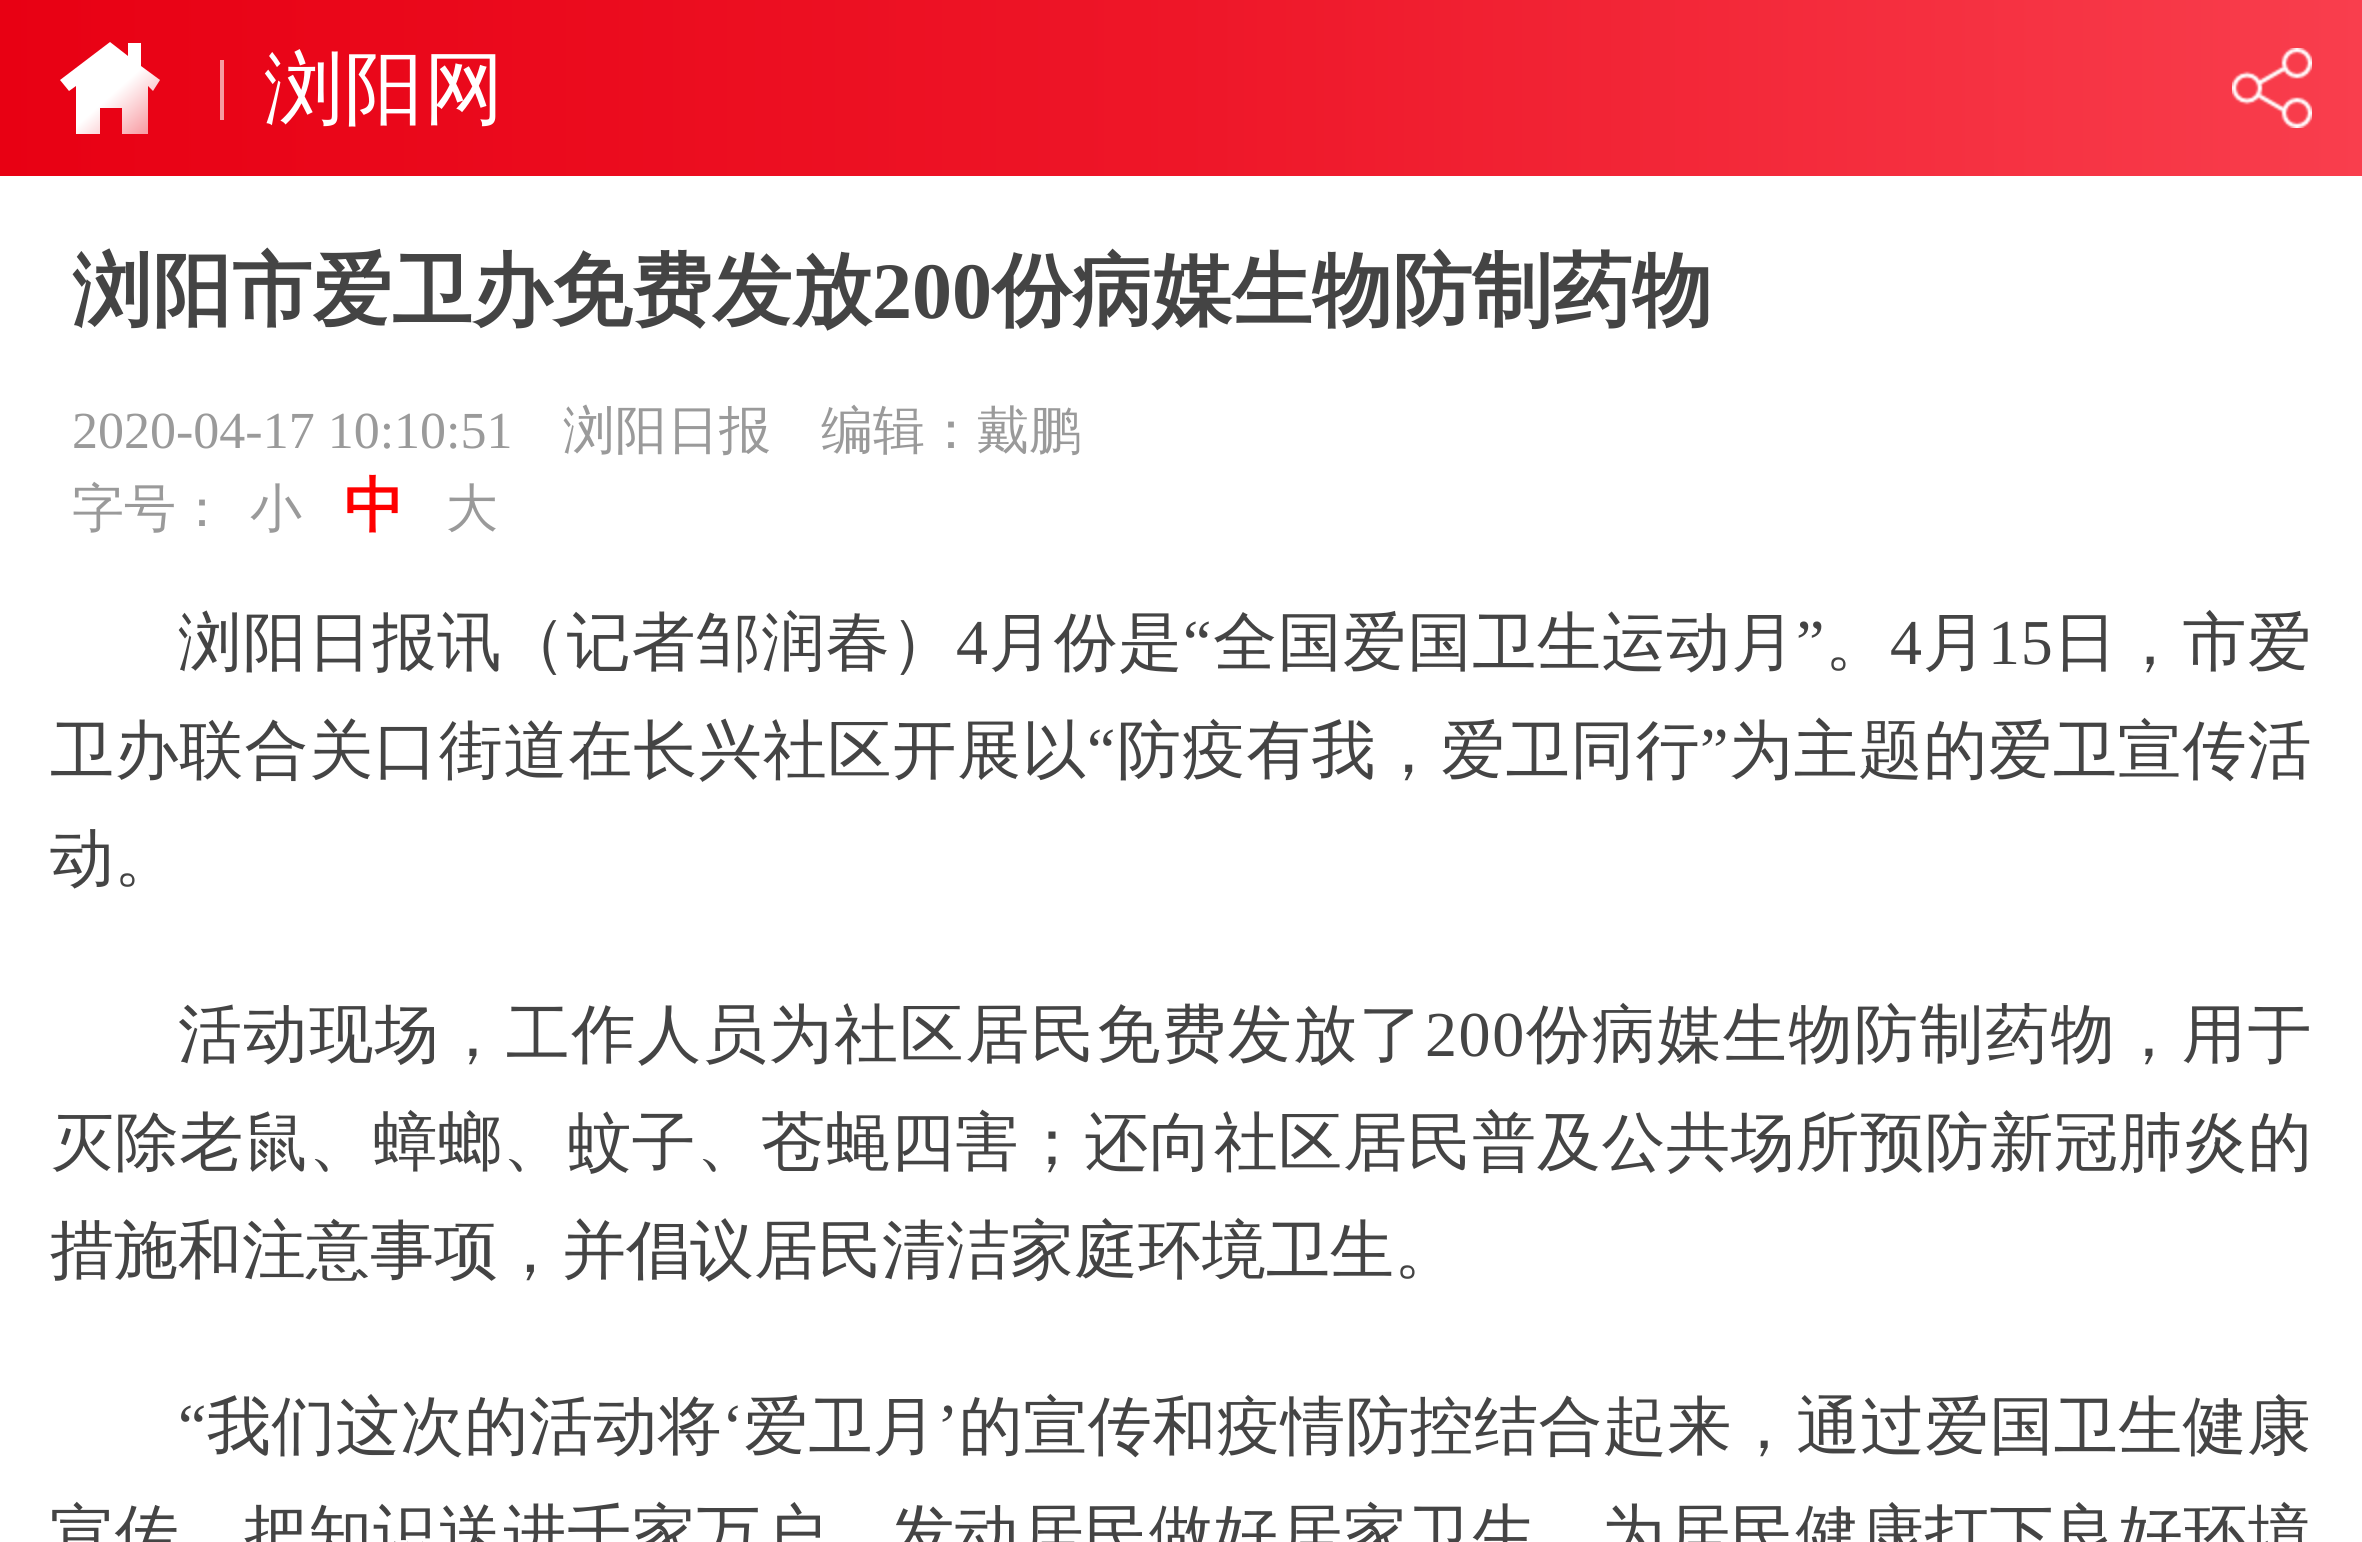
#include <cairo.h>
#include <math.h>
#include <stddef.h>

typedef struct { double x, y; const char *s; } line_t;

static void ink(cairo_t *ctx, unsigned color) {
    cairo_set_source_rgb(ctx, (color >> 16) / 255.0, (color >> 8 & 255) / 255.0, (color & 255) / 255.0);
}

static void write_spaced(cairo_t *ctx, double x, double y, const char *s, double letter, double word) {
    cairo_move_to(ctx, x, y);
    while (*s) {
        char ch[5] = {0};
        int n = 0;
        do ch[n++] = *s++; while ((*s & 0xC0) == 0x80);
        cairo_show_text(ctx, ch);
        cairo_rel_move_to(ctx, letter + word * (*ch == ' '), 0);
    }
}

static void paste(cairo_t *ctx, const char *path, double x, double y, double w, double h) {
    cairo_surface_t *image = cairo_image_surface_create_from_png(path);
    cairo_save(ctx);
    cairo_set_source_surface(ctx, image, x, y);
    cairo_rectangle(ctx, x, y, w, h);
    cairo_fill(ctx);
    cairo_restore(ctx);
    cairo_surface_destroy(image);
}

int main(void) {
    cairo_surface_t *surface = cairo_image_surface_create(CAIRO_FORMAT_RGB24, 2362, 1542);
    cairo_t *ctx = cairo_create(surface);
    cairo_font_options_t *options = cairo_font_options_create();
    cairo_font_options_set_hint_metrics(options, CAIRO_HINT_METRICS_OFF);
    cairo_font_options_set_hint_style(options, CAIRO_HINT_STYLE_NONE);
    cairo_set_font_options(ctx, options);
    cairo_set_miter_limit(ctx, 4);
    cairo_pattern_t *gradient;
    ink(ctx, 0xFFFFFF);
    cairo_paint(ctx);
    gradient = cairo_pattern_create_linear(0, 88, 2362, 88);
    cairo_pattern_add_color_stop_rgba(gradient, 0, 0.91, 0, 0.075, 1);
    cairo_pattern_add_color_stop_rgba(gradient, 0.5, 0.933, 0.086, 0.157, 1);
    cairo_pattern_add_color_stop_rgba(gradient, 1, 0.976, 0.243, 0.302, 1);
    cairo_set_source(ctx, gradient);
    cairo_pattern_destroy(gradient);
    cairo_rectangle(ctx, 0, 0, 2362, 176);
    cairo_fill(ctx);
    gradient = cairo_pattern_create_linear(110, 96, 144, 134);
    cairo_pattern_add_color_stop_rgba(gradient, 0, 1, 1, 1, 1);
    cairo_pattern_add_color_stop_rgba(gradient, 1, 0.973, 0.62, 0.647, 1);
    cairo_set_source(ctx, gradient);
    cairo_pattern_destroy(gradient);
    cairo_set_fill_rule(ctx, CAIRO_FILL_RULE_EVEN_ODD);
    cairo_new_path(ctx);
    cairo_move_to(ctx, 100, 134);
    cairo_line_to(ctx, 76, 134);
    cairo_line_to(ctx, 76, 86);
    cairo_line_to(ctx, 69, 91);
    cairo_line_to(ctx, 60, 80);
    cairo_line_to(ctx, 110, 42);
    cairo_line_to(ctx, 128, 56);
    cairo_line_to(ctx, 128, 43);
    cairo_line_to(ctx, 141, 43);
    cairo_line_to(ctx, 141, 66);
    cairo_line_to(ctx, 160, 80);
    cairo_line_to(ctx, 153, 91);
    cairo_line_to(ctx, 148, 86);
    cairo_line_to(ctx, 148, 134);
    cairo_line_to(ctx, 122, 134);
    cairo_line_to(ctx, 122, 108);
    cairo_line_to(ctx, 100, 108);
    cairo_close_path(ctx);
    cairo_fill(ctx);
    ink(ctx, 0xF69BA2);
    cairo_rectangle(ctx, 220, 60, 4, 60);
    cairo_fill(ctx);
    cairo_select_font_face(ctx, "WenQuanYi Zen Hei Medium", CAIRO_FONT_SLANT_NORMAL, CAIRO_FONT_WEIGHT_NORMAL);
    cairo_set_font_size(ctx, 80);
    ink(ctx, 0xFFFFFF);
    cairo_move_to(ctx, 264, 116);
    cairo_show_text(ctx, "浏阳网");
    paste(ctx, "media/1.png", 2232, 48, 80, 80);
    cairo_select_font_face(ctx, "WenQuanYi Zen Hei", CAIRO_FONT_SLANT_NORMAL, CAIRO_FONT_WEIGHT_BOLD);
    ink(ctx, 0x444444);
    cairo_move_to(ctx, 72, 318);
    cairo_show_text(ctx, "浏阳市爱卫办免费发放");
    cairo_select_font_face(ctx, "Liberation Serif", CAIRO_FONT_SLANT_NORMAL, CAIRO_FONT_WEIGHT_BOLD);
    cairo_move_to(ctx, 872, 318);
    cairo_show_text(ctx, "200");
    cairo_select_font_face(ctx, "WenQuanYi Zen Hei", CAIRO_FONT_SLANT_NORMAL, CAIRO_FONT_WEIGHT_BOLD);
    cairo_move_to(ctx, 992, 318);
    cairo_show_text(ctx, "份病媒生物防制药物");
    cairo_select_font_face(ctx, "Liberation Serif", CAIRO_FONT_SLANT_NORMAL, CAIRO_FONT_WEIGHT_NORMAL);
    cairo_set_font_size(ctx, 52);
    ink(ctx, 0x9A9A9A);
    cairo_move_to(ctx, 72, 448);
    cairo_show_text(ctx, "2020-04-17 10:10:51");
    cairo_select_font_face(ctx, "WenQuanYi Zen Hei Medium", CAIRO_FONT_SLANT_NORMAL, CAIRO_FONT_WEIGHT_NORMAL);
    {
        static const line_t items[] = {
            {563, 448, "浏阳日报"},
            {821, 448, "编辑：戴鹏"},
            {72, 526, "字号："},
            {250, 526, "小"},
        };
        for (size_t i = 0; i < sizeof items / sizeof *items; i++) {
            cairo_move_to(ctx, items[i].x, items[i].y);
            cairo_show_text(ctx, items[i].s);
        }
    }
    cairo_select_font_face(ctx, "WenQuanYi Zen Hei", CAIRO_FONT_SLANT_NORMAL, CAIRO_FONT_WEIGHT_BOLD);
    cairo_set_font_size(ctx, 60);
    ink(ctx, 0xFF0000);
    cairo_move_to(ctx, 344, 526);
    cairo_show_text(ctx, "中");
    cairo_select_font_face(ctx, "WenQuanYi Zen Hei Medium", CAIRO_FONT_SLANT_NORMAL, CAIRO_FONT_WEIGHT_NORMAL);
    cairo_set_font_size(ctx, 52);
    ink(ctx, 0x9A9A9A);
    cairo_move_to(ctx, 446, 526);
    cairo_show_text(ctx, "大");
    cairo_set_font_size(ctx, 64);
    ink(ctx, 0x444444);
    write_spaced(ctx, 178, 664, "浏阳日报讯（记者邹润春）", 0.8, 0);
    cairo_select_font_face(ctx, "Liberation Serif", CAIRO_FONT_SLANT_NORMAL, CAIRO_FONT_WEIGHT_NORMAL);
    write_spaced(ctx, 956, 664, "4", 0.8, 0);
    cairo_select_font_face(ctx, "WenQuanYi Zen Hei Medium", CAIRO_FONT_SLANT_NORMAL, CAIRO_FONT_WEIGHT_NORMAL);
    write_spaced(ctx, 989, 664, "月份是", 0.8, 0);
    cairo_select_font_face(ctx, "Liberation Serif", CAIRO_FONT_SLANT_NORMAL, CAIRO_FONT_WEIGHT_NORMAL);
    write_spaced(ctx, 1183, 664, "“", 0.8, 0);
    cairo_select_font_face(ctx, "WenQuanYi Zen Hei Medium", CAIRO_FONT_SLANT_NORMAL, CAIRO_FONT_WEIGHT_NORMAL);
    write_spaced(ctx, 1213, 664, "全国爱国卫生运动月", 0.8, 0);
    cairo_select_font_face(ctx, "Liberation Serif", CAIRO_FONT_SLANT_NORMAL, CAIRO_FONT_WEIGHT_NORMAL);
    write_spaced(ctx, 1796, 664, "”", 0.8, 0);
    cairo_select_font_face(ctx, "WenQuanYi Zen Hei Medium", CAIRO_FONT_SLANT_NORMAL, CAIRO_FONT_WEIGHT_NORMAL);
    write_spaced(ctx, 1825, 664, "。", 0.8, 0);
    cairo_select_font_face(ctx, "Liberation Serif", CAIRO_FONT_SLANT_NORMAL, CAIRO_FONT_WEIGHT_NORMAL);
    write_spaced(ctx, 1890, 664, "4", 0.8, 0);
    cairo_select_font_face(ctx, "WenQuanYi Zen Hei Medium", CAIRO_FONT_SLANT_NORMAL, CAIRO_FONT_WEIGHT_NORMAL);
    write_spaced(ctx, 1923, 664, "月", 0.8, 0);
    cairo_select_font_face(ctx, "Liberation Serif", CAIRO_FONT_SLANT_NORMAL, CAIRO_FONT_WEIGHT_NORMAL);
    write_spaced(ctx, 1988, 664, "15", 0.8, 0);
    cairo_select_font_face(ctx, "WenQuanYi Zen Hei Medium", CAIRO_FONT_SLANT_NORMAL, CAIRO_FONT_WEIGHT_NORMAL);
    write_spaced(ctx, 2053, 664, "日，市爱", 0.8, 0);
    write_spaced(ctx, 50, 772, "卫办联合关口街道在长兴社区开展以", 0.8, 0);
    cairo_select_font_face(ctx, "Liberation Serif", CAIRO_FONT_SLANT_NORMAL, CAIRO_FONT_WEIGHT_NORMAL);
    write_spaced(ctx, 1087, 772, "“", 0.8, 0);
    cairo_select_font_face(ctx, "WenQuanYi Zen Hei Medium", CAIRO_FONT_SLANT_NORMAL, CAIRO_FONT_WEIGHT_NORMAL);
    write_spaced(ctx, 1117, 772, "防疫有我，爱卫同行", 0.8, 0);
    cairo_select_font_face(ctx, "Liberation Serif", CAIRO_FONT_SLANT_NORMAL, CAIRO_FONT_WEIGHT_NORMAL);
    write_spaced(ctx, 1700, 772, "”", 0.8, 0);
    cairo_select_font_face(ctx, "WenQuanYi Zen Hei Medium", CAIRO_FONT_SLANT_NORMAL, CAIRO_FONT_WEIGHT_NORMAL);
    write_spaced(ctx, 1729, 772, "为主题的爱卫宣传活", 0.8, 0);
    cairo_move_to(ctx, 50, 880);
    cairo_show_text(ctx, "动。");
    write_spaced(ctx, 178, 1056, "活动现场，工作人员为社区居民免费发放了", 1.6, 0);
    cairo_select_font_face(ctx, "Liberation Serif", CAIRO_FONT_SLANT_NORMAL, CAIRO_FONT_WEIGHT_NORMAL);
    write_spaced(ctx, 1425, 1056, "200", 1.6, 0);
    cairo_select_font_face(ctx, "WenQuanYi Zen Hei Medium", CAIRO_FONT_SLANT_NORMAL, CAIRO_FONT_WEIGHT_NORMAL);
    write_spaced(ctx, 1526, 1056, "份病媒生物防制药物，用于", 1.6, 0);
    write_spaced(ctx, 50, 1164, "灭除老鼠、蟑螂、蚊子、苍蝇四害；还向社区居民普及公共场所预防新冠肺炎的", 0.65, 0);
    cairo_move_to(ctx, 50, 1272);
    cairo_show_text(ctx, "措施和注意事项，并倡议居民清洁家庭环境卫生。");
    cairo_select_font_face(ctx, "Liberation Serif", CAIRO_FONT_SLANT_NORMAL, CAIRO_FONT_WEIGHT_NORMAL);
    write_spaced(ctx, 178, 1448, "“", 0.4, 0);
    cairo_select_font_face(ctx, "WenQuanYi Zen Hei Medium", CAIRO_FONT_SLANT_NORMAL, CAIRO_FONT_WEIGHT_NORMAL);
    write_spaced(ctx, 207, 1448, "我们这次的活动将", 0.4, 0);
    cairo_select_font_face(ctx, "Liberation Serif", CAIRO_FONT_SLANT_NORMAL, CAIRO_FONT_WEIGHT_NORMAL);
    write_spaced(ctx, 722, 1448, "‘", 0.4, 0);
    cairo_select_font_face(ctx, "WenQuanYi Zen Hei Medium", CAIRO_FONT_SLANT_NORMAL, CAIRO_FONT_WEIGHT_NORMAL);
    write_spaced(ctx, 744, 1448, "爱卫月", 0.4, 0);
    cairo_select_font_face(ctx, "Liberation Serif", CAIRO_FONT_SLANT_NORMAL, CAIRO_FONT_WEIGHT_NORMAL);
    write_spaced(ctx, 937, 1448, "’", 0.4, 0);
    cairo_select_font_face(ctx, "WenQuanYi Zen Hei Medium", CAIRO_FONT_SLANT_NORMAL, CAIRO_FONT_WEIGHT_NORMAL);
    write_spaced(ctx, 959, 1448, "的宣传和疫情防控结合起来，通过爱国卫生健康", 0.4, 0);
    write_spaced(ctx, 50, 1556, "宣传，把知识送进千家万户，发动居民做好居家卫生，为居民健康打下良好环境", 0.65, 0);
    cairo_surface_write_to_png(surface, "image.png");
    cairo_font_options_destroy(options);
    cairo_destroy(ctx);
    cairo_surface_destroy(surface);
    return 0;
}
